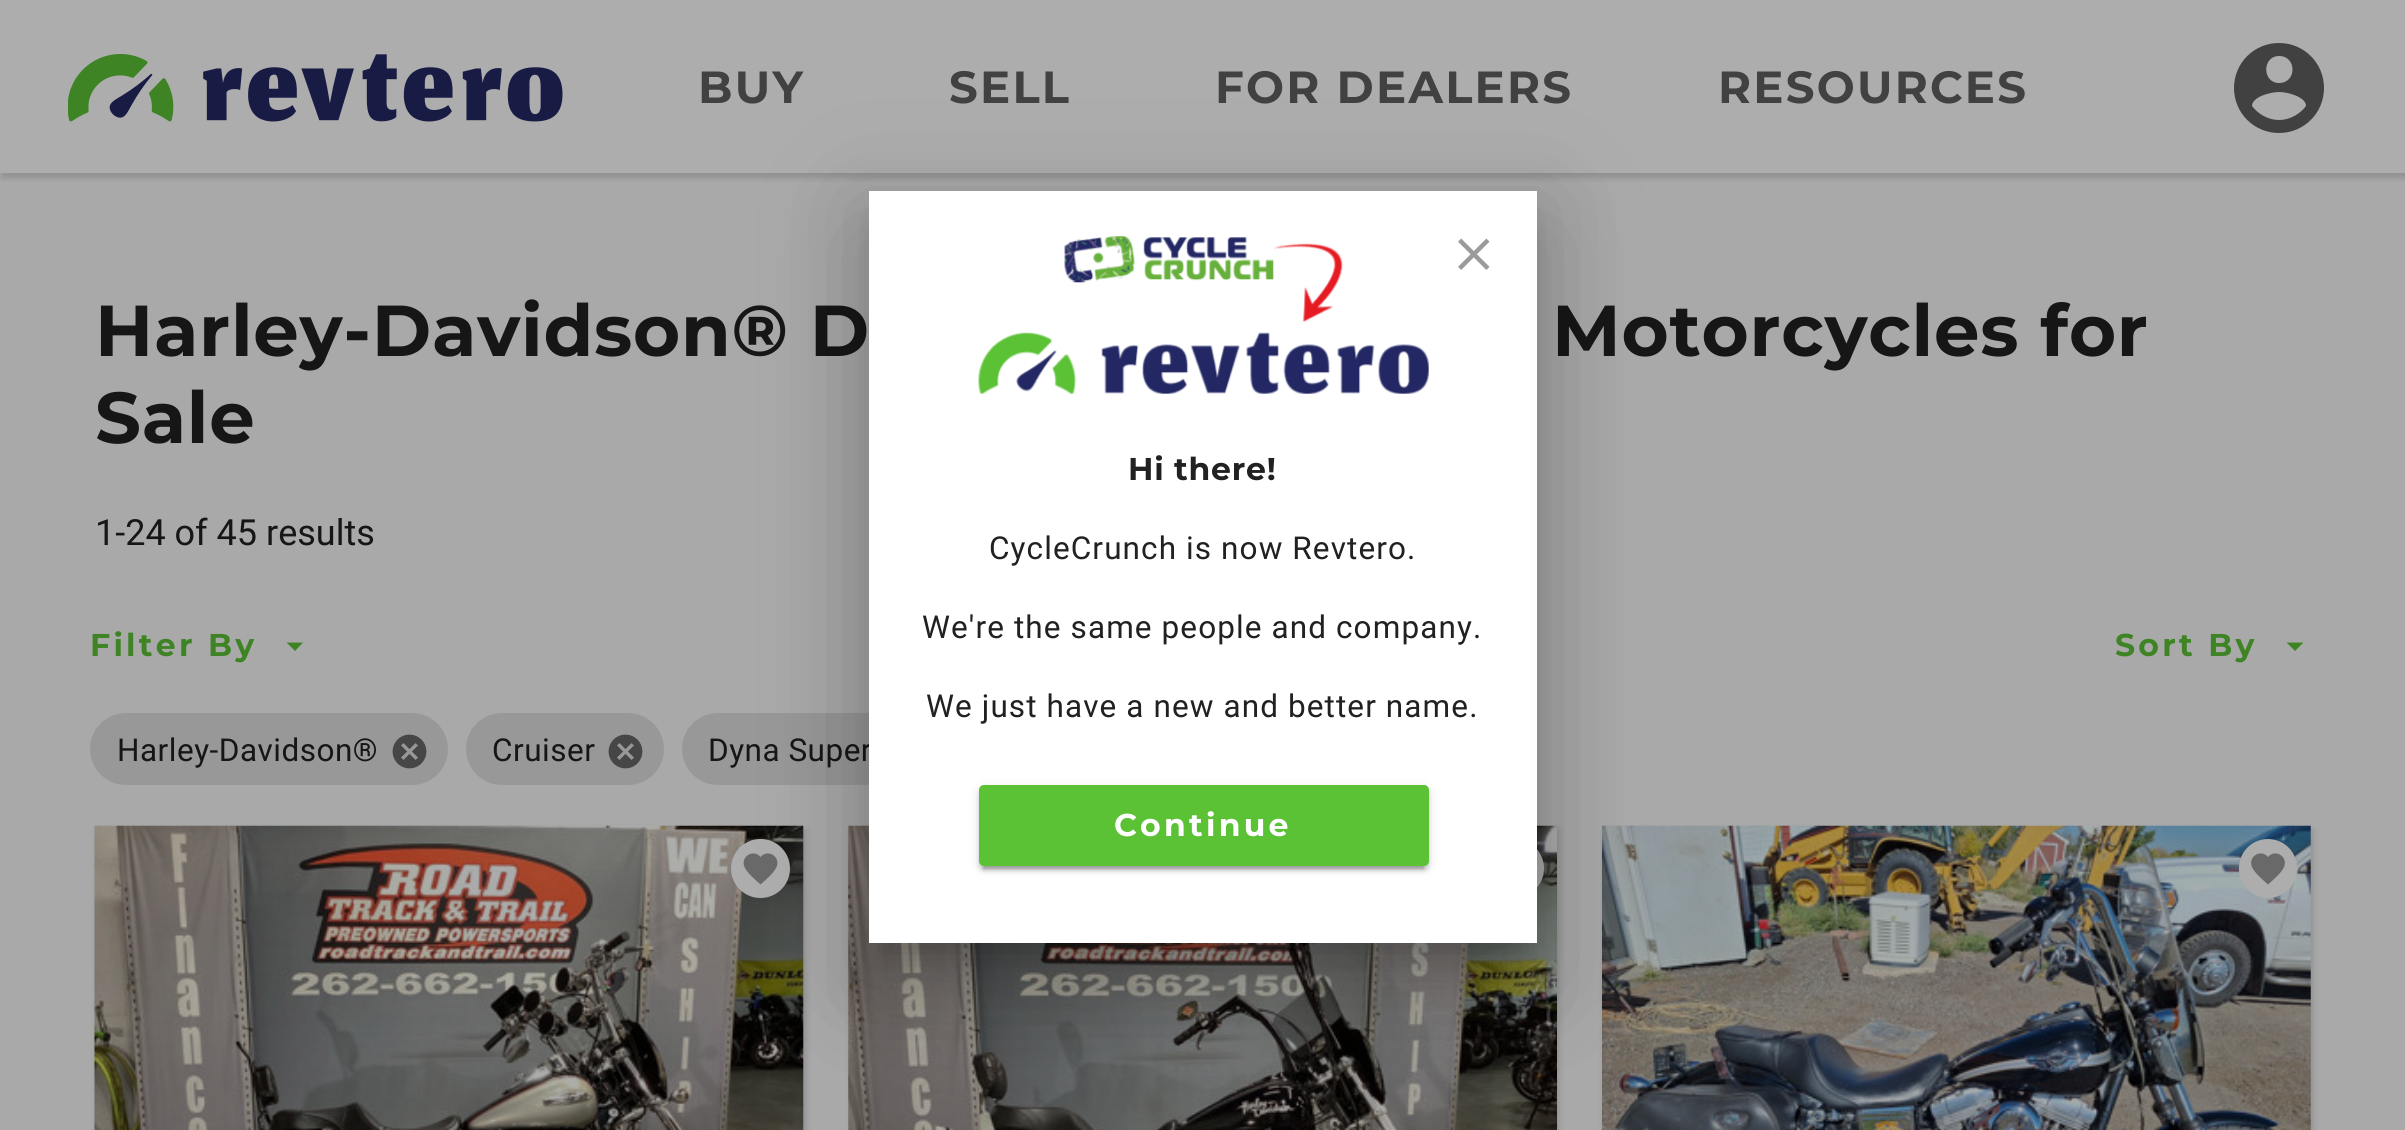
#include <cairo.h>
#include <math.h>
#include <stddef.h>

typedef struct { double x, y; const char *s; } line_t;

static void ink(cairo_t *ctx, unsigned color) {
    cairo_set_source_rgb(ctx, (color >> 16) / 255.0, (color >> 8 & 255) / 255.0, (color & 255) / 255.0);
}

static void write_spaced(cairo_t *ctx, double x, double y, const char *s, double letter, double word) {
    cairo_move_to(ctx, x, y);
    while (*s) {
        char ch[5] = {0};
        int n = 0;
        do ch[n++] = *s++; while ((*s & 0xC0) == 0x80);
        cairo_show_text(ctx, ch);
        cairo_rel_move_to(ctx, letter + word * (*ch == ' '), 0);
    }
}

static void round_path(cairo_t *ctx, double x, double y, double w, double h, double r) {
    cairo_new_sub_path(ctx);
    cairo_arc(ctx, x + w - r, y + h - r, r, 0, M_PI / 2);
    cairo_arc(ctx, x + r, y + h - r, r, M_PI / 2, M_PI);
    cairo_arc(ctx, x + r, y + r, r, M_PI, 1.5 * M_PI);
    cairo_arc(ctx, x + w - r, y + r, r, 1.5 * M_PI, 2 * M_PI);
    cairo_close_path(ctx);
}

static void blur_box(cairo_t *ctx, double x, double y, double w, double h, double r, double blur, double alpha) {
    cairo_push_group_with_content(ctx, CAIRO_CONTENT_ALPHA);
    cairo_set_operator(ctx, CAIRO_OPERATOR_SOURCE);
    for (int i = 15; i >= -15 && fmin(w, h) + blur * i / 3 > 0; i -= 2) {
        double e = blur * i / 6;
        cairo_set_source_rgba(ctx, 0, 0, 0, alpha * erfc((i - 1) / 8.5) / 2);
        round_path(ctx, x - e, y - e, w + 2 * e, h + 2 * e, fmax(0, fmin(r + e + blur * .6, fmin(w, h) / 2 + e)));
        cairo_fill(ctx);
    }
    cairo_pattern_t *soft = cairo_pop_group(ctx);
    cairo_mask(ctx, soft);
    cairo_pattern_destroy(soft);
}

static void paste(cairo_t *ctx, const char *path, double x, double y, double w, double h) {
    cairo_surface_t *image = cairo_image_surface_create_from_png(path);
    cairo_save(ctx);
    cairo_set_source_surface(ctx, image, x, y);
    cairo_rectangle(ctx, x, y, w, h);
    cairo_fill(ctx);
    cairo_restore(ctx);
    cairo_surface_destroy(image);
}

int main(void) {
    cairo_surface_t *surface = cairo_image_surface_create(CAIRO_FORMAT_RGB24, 2405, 1130);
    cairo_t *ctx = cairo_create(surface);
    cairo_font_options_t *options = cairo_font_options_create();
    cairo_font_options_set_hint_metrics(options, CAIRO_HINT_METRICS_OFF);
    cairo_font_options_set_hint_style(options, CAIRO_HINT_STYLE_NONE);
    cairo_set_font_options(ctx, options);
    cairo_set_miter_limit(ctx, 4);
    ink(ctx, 0xADADAD);
    cairo_paint(ctx);
    ink(ctx, 0xA9A9A9);
    cairo_rectangle(ctx, 0, 173, 2405, 957);
    cairo_fill(ctx);
    cairo_save(ctx);
    cairo_rectangle(ctx, 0, 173, 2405, 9);
    cairo_clip(ctx);
    ink(ctx, 0x000000);
    blur_box(ctx, 2, 5, 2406, 173, 0, 3.5, 0.15);
    cairo_restore(ctx);
    paste(ctx, "media/1.png", 68, 54, 495, 68);
    cairo_select_font_face(ctx, "Montserrat", CAIRO_FONT_SLANT_NORMAL, CAIRO_FONT_WEIGHT_BOLD);
    cairo_set_font_size(ctx, 45);
    ink(ctx, 0x414141);
    {
        static const line_t items[] = {
            {698, 103, "BUY"},
            {949, 103, "SELL"},
            {1215, 103, "FOR DEALERS"},
            {1718, 103, "RESOURCES"},
        };
        for (size_t i = 0; i < sizeof items / sizeof *items; i++) {
            write_spaced(ctx, items[i].x, items[i].y, items[i].s, 2.25, 0);
        }
    }
    cairo_new_path(ctx);
    cairo_move_to(ctx, 2279, 43);
    cairo_curve_to(ctx, 2254, 43, 2234, 63, 2234, 88);
    cairo_curve_to(ctx, 2234, 113, 2254, 133, 2279, 133);
    cairo_curve_to(ctx, 2304, 133, 2324, 113, 2324, 88);
    cairo_curve_to(ctx, 2324, 63, 2304, 43, 2279, 43);
    cairo_close_path(ctx);
    cairo_move_to(ctx, 2279, 56);
    cairo_curve_to(ctx, 2297, 56, 2297, 83, 2279, 83);
    cairo_curve_to(ctx, 2262, 83, 2262, 56, 2279, 56);
    cairo_close_path(ctx);
    cairo_move_to(ctx, 2279, 120);
    cairo_curve_to(ctx, 2268, 120, 2258, 114, 2252, 106);
    cairo_curve_to(ctx, 2252, 97, 2270, 92, 2279, 92);
    cairo_curve_to(ctx, 2288, 92, 2306, 97, 2306, 106);
    cairo_curve_to(ctx, 2300, 114, 2290, 120, 2279, 120);
    cairo_close_path(ctx);
    cairo_fill(ctx);
    cairo_set_font_size(ctx, 72);
    ink(ctx, 0x161616);
    {
        static const line_t items[] = {
            {95, 356, "Harley-Davidson® D"},
            {1552, 356, "Motorcycles for"},
            {95, 443, "Sale"},
        };
        for (size_t i = 0; i < sizeof items / sizeof *items; i++) {
            write_spaced(ctx, items[i].x, items[i].y, items[i].s, 0.75, 0);
        }
    }
    cairo_select_font_face(ctx, "Roboto", CAIRO_FONT_SLANT_NORMAL, CAIRO_FONT_WEIGHT_NORMAL);
    cairo_set_font_size(ctx, 36);
    cairo_move_to(ctx, 95, 545);
    cairo_show_text(ctx, "1-24 of 45 results");
    cairo_select_font_face(ctx, "Montserrat", CAIRO_FONT_SLANT_NORMAL, CAIRO_FONT_WEIGHT_BOLD);
    cairo_set_font_size(ctx, 31.5);
    ink(ctx, 0x3E8425);
    write_spaced(ctx, 90, 656, "Filter By", 3.25, 0);
    cairo_new_path(ctx);
    cairo_move_to(ctx, 286.5, 642.5);
    cairo_line_to(ctx, 295, 651);
    cairo_line_to(ctx, 303, 642.5);
    cairo_close_path(ctx);
    cairo_fill(ctx);
    write_spaced(ctx, 2115, 656, "Sort By", 3.25, 0);
    cairo_new_path(ctx);
    cairo_move_to(ctx, 2286.5, 642.5);
    cairo_line_to(ctx, 2295, 651);
    cairo_line_to(ctx, 2303.5, 642.5);
    cairo_close_path(ctx);
    cairo_fill(ctx);
    ink(ctx, 0x989898);
    round_path(ctx, 90, 713, 358, 72, 36);
    cairo_fill(ctx);
    cairo_select_font_face(ctx, "Roboto", CAIRO_FONT_SLANT_NORMAL, CAIRO_FONT_WEIGHT_NORMAL);
    ink(ctx, 0x161616);
    write_spaced(ctx, 117, 761, "Harley-Davidson®", 0.5, 0);
    paste(ctx, "media/2.png", 392, 734, 35, 35);
    ink(ctx, 0x989898);
    round_path(ctx, 466, 713, 198, 72, 36);
    cairo_fill(ctx);
    ink(ctx, 0x161616);
    write_spaced(ctx, 492, 761, "Cruiser", 0.5, 0);
    paste(ctx, "media/2.png", 608, 734, 35, 35);
    ink(ctx, 0x989898);
    round_path(ctx, 682, 713, 367, 72, 36);
    cairo_fill(ctx);
    ink(ctx, 0x161616);
    write_spaced(ctx, 708, 761, "Dyna Super", 0.5, 0);
    ink(ctx, 0x000000);
    blur_box(ctx, 97, 830, 709, 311, 0, 3.5, 0.15);
    paste(ctx, "media/3.png", 94, 825, 710, 305);
    ink(ctx, 0xADADAD);
    cairo_arc(ctx, 760.5, 868.5, 29.5, 0, 2 * M_PI);
    cairo_fill(ctx);
    ink(ctx, 0x696969);
    cairo_new_path(ctx);
    cairo_move_to(ctx, 760.5, 884.5);
    cairo_curve_to(ctx, 755, 879.5, 747.5, 873.5, 744.5, 867);
    cairo_curve_to(ctx, 740, 856.5, 753.5, 848.5, 760.5, 857);
    cairo_curve_to(ctx, 767.5, 848.5, 781, 856.5, 776.5, 867);
    cairo_curve_to(ctx, 773.5, 873.5, 766, 879.5, 760.5, 884.5);
    cairo_close_path(ctx);
    cairo_fill(ctx);
    ink(ctx, 0x000000);
    blur_box(ctx, 851, 830, 708, 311, 0, 3.5, 0.15);
    paste(ctx, "media/4.png", 848, 825, 709, 305);
    ink(ctx, 0xADADAD);
    cairo_arc(ctx, 1514.5, 868.5, 29.5, 0, 2 * M_PI);
    cairo_fill(ctx);
    ink(ctx, 0x000000);
    blur_box(ctx, 1604, 830, 709, 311, 0, 3.5, 0.15);
    paste(ctx, "media/5.png", 1602, 825, 709, 305);
    ink(ctx, 0xADADAD);
    round_path(ctx, 2239, 839, 58, 59, 29);
    cairo_fill(ctx);
    ink(ctx, 0x696969);
    cairo_new_path(ctx);
    cairo_move_to(ctx, 2268, 884.5);
    cairo_curve_to(ctx, 2262.5, 879.5, 2255, 873.5, 2252, 867);
    cairo_curve_to(ctx, 2247.5, 856.5, 2261, 848.5, 2268, 857);
    cairo_curve_to(ctx, 2275, 848.5, 2288.5, 856.5, 2284, 867);
    cairo_curve_to(ctx, 2281, 873.5, 2273.5, 879.5, 2268, 884.5);
    cairo_close_path(ctx);
    cairo_fill(ctx);
    ink(ctx, 0x000000);
    blur_box(ctx, 851, 194, 704, 787, 0, 52, 0.12);
    blur_box(ctx, 862, 239, 682, 765, 0, 43, 0.14);
    blur_box(ctx, 884, 232, 637, 720, 0, 17, 0.2);
    ink(ctx, 0xFFFFFF);
    cairo_rectangle(ctx, 869, 191, 668, 752);
    cairo_fill(ctx);
    paste(ctx, "media/6.png", 978, 236, 451, 158);
    paste(ctx, "media/7.png", 1458, 238, 32, 32);
    cairo_select_font_face(ctx, "Montserrat", CAIRO_FONT_SLANT_NORMAL, CAIRO_FONT_WEIGHT_BOLD);
    ink(ctx, 0x212121);
    write_spaced(ctx, 1128, 480, "Hi there!", 0.75, 0);
    cairo_select_font_face(ctx, "Roboto", CAIRO_FONT_SLANT_NORMAL, CAIRO_FONT_WEIGHT_NORMAL);
    {
        static const line_t items[] = {
            {989, 559, "CycleCrunch is now Revtero."},
            {922, 638, "We're the same people and company."},
            {926, 717, "We just have a new and better name."},
        };
        for (size_t i = 0; i < sizeof items / sizeof *items; i++) {
            write_spaced(ctx, items[i].x, items[i].y, items[i].s, 1.1, 0);
        }
    }
    ink(ctx, 0x000000);
    blur_box(ctx, 979, 788, 450, 81, 5, 5.5, 0.12);
    blur_box(ctx, 979, 790, 450, 81, 5, 2, 0.14);
    blur_box(ctx, 983, 797, 441, 72, 0, 1, 0.2);
    ink(ctx, 0x5BC236);
    round_path(ctx, 979, 785, 450, 81, 5);
    cairo_fill(ctx);
    cairo_select_font_face(ctx, "Montserrat", CAIRO_FONT_SLANT_NORMAL, CAIRO_FONT_WEIGHT_BOLD);
    ink(ctx, 0xFFFFFF);
    write_spaced(ctx, 1114, 836, "Continue", 3.25, 0);
    cairo_surface_write_to_png(surface, "image.png");
    cairo_font_options_destroy(options);
    cairo_destroy(ctx);
    cairo_surface_destroy(surface);
    return 0;
}
